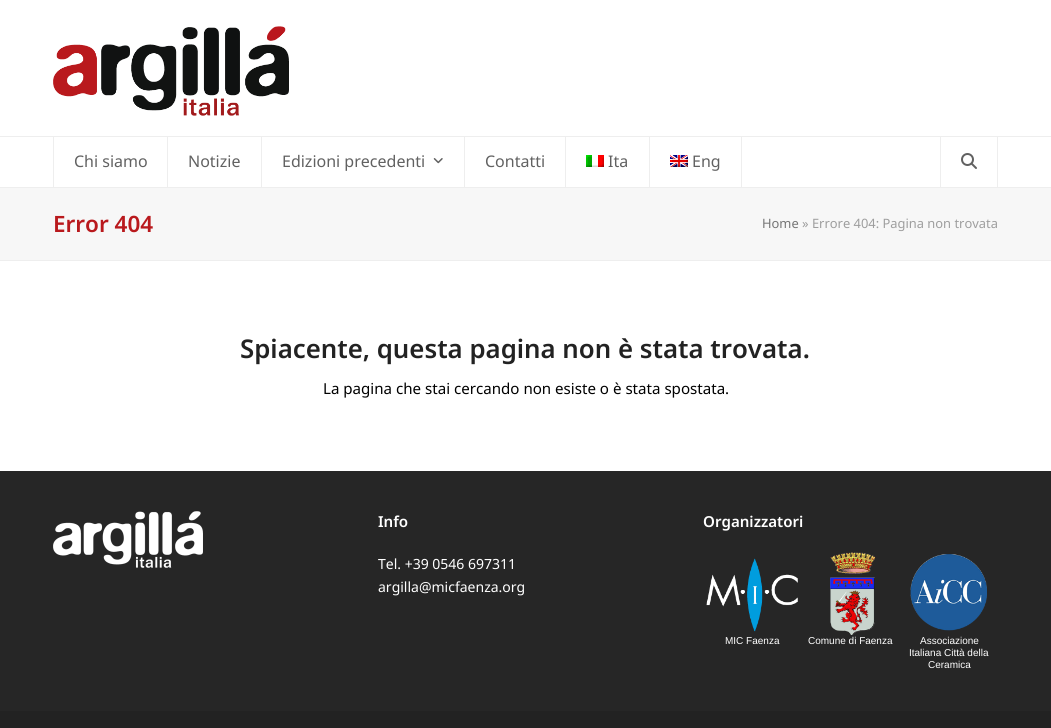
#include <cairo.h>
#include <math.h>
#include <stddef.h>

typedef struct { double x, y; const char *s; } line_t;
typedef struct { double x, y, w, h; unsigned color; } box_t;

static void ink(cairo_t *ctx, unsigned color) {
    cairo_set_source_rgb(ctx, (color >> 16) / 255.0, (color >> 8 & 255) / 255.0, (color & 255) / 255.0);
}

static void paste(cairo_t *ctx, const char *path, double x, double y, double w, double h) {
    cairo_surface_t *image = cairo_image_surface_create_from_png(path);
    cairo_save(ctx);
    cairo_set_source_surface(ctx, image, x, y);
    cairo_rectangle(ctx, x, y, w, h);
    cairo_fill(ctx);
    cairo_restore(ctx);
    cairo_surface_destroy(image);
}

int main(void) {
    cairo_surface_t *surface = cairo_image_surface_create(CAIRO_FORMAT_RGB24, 1051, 728);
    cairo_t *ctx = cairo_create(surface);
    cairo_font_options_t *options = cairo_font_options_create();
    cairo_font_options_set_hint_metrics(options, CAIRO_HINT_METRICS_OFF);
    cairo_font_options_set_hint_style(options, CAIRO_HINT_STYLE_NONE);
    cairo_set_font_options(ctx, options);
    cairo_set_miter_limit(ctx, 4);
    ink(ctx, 0xFFFFFF);
    cairo_paint(ctx);
    paste(ctx, "media/1.png", 53, 26, 236, 90);
    {
        static const box_t items[] = {
            {0, 136, 1051, 1, 0xEEEEEE},
            {997, 137, 1, 50, 0xEEEEEE},
            {53, 137, 1, 50, 0xEEEEEE},
            {167, 137, 1, 50, 0xEEEEEE},
        };
        for (size_t i = 0; i < sizeof items / sizeof *items; i++) {
            ink(ctx, items[i].color);
            cairo_rectangle(ctx, items[i].x, items[i].y, items[i].w, items[i].h);
            cairo_fill(ctx);
        }
    }
    cairo_select_font_face(ctx, "Noto Sans", CAIRO_FONT_SLANT_NORMAL, CAIRO_FONT_WEIGHT_NORMAL);
    cairo_set_font_size(ctx, 16);
    ink(ctx, 0x616161);
    cairo_move_to(ctx, 74, 167);
    cairo_show_text(ctx, "Chi siamo");
    ink(ctx, 0xEEEEEE);
    cairo_rectangle(ctx, 261, 137, 1, 50);
    cairo_fill(ctx);
    ink(ctx, 0x616161);
    cairo_move_to(ctx, 188, 167);
    cairo_show_text(ctx, "Notizie");
    ink(ctx, 0xEEEEEE);
    cairo_rectangle(ctx, 464, 137, 1, 50);
    cairo_fill(ctx);
    ink(ctx, 0x616161);
    cairo_move_to(ctx, 282, 167);
    cairo_show_text(ctx, "Edizioni precedenti");
    paste(ctx, "media/2.png", 433, 158, 10, 6);
    ink(ctx, 0xEEEEEE);
    cairo_rectangle(ctx, 565, 137, 1, 50);
    cairo_fill(ctx);
    ink(ctx, 0x616161);
    cairo_move_to(ctx, 485, 167);
    cairo_show_text(ctx, "Contatti");
    ink(ctx, 0xEEEEEE);
    cairo_rectangle(ctx, 649, 137, 1, 50);
    cairo_fill(ctx);
    paste(ctx, "media/3.png", 586, 155, 18, 12);
    ink(ctx, 0x616161);
    cairo_move_to(ctx, 608, 167);
    cairo_show_text(ctx, "Ita");
    ink(ctx, 0xEEEEEE);
    cairo_rectangle(ctx, 741, 137, 1, 50);
    cairo_fill(ctx);
    paste(ctx, "media/4.png", 670, 155, 18, 12);
    ink(ctx, 0x616161);
    cairo_move_to(ctx, 692, 167);
    cairo_show_text(ctx, "Eng");
    ink(ctx, 0xEEEEEE);
    cairo_rectangle(ctx, 940, 137, 1, 50);
    cairo_fill(ctx);
    paste(ctx, "media/5.png", 961, 153, 16, 16);
    {
        static const box_t items[] = {
            {0, 188, 1051, 72, 0xF7F7F7},
            {0, 187, 1051, 1, 0xEEEEEE},
            {0, 260, 1051, 1, 0xEEEEEE},
        };
        for (size_t i = 0; i < sizeof items / sizeof *items; i++) {
            ink(ctx, items[i].color);
            cairo_rectangle(ctx, items[i].x, items[i].y, items[i].w, items[i].h);
            cairo_fill(ctx);
        }
    }
    cairo_select_font_face(ctx, "Noto Sans SemiBold", CAIRO_FONT_SLANT_NORMAL, CAIRO_FONT_WEIGHT_NORMAL);
    cairo_set_font_size(ctx, 22.5);
    ink(ctx, 0xB9191D);
    cairo_move_to(ctx, 53, 232);
    cairo_show_text(ctx, "Error 404");
    cairo_select_font_face(ctx, "Noto Sans", CAIRO_FONT_SLANT_NORMAL, CAIRO_FONT_WEIGHT_NORMAL);
    cairo_set_font_size(ctx, 12.9);
    ink(ctx, 0x757575);
    cairo_move_to(ctx, 762, 228);
    cairo_show_text(ctx, "Home");
    ink(ctx, 0x9E9E9E);
    cairo_move_to(ctx, 802, 228);
    cairo_show_text(ctx, "» Errore 404: Pagina non trovata");
    cairo_select_font_face(ctx, "Noto Sans SemiBold", CAIRO_FONT_SLANT_NORMAL, CAIRO_FONT_WEIGHT_NORMAL);
    cairo_set_font_size(ctx, 25.8);
    ink(ctx, 0x222222);
    cairo_move_to(ctx, 240, 358);
    cairo_show_text(ctx, "Spiacente, questa pagina non è stata trovata.");
    cairo_select_font_face(ctx, "Noto Sans", CAIRO_FONT_SLANT_NORMAL, CAIRO_FONT_WEIGHT_NORMAL);
    cairo_set_font_size(ctx, 15.1);
    ink(ctx, 0x000000);
    cairo_move_to(ctx, 323, 394);
    cairo_show_text(ctx, "La pagina che stai cercando non esiste o è stata spostata.");
    ink(ctx, 0x262626);
    cairo_rectangle(ctx, 0, 471, 1051, 240);
    cairo_fill(ctx);
    paste(ctx, "media/6.png", 53, 511, 150, 57);
    cairo_select_font_face(ctx, "Noto Sans SemiBold", CAIRO_FONT_SLANT_NORMAL, CAIRO_FONT_WEIGHT_NORMAL);
    ink(ctx, 0xFFFFFF);
    cairo_move_to(ctx, 378, 527);
    cairo_show_text(ctx, "Info");
    cairo_select_font_face(ctx, "Noto Sans", CAIRO_FONT_SLANT_NORMAL, CAIRO_FONT_WEIGHT_NORMAL);
    cairo_set_font_size(ctx, 14);
    cairo_move_to(ctx, 378, 569);
    cairo_show_text(ctx, "Tel. +39 0546 697311");
    cairo_move_to(ctx, 378, 592);
    cairo_show_text(ctx, "argilla@micfaenza.org");
    cairo_select_font_face(ctx, "Noto Sans SemiBold", CAIRO_FONT_SLANT_NORMAL, CAIRO_FONT_WEIGHT_NORMAL);
    cairo_set_font_size(ctx, 15.1);
    cairo_move_to(ctx, 703, 527);
    cairo_show_text(ctx, "Organizzatori");
    paste(ctx, "media/7.png", 706, 558, 92, 74);
    cairo_select_font_face(ctx, "Liberation Sans", CAIRO_FONT_SLANT_NORMAL, CAIRO_FONT_WEIGHT_NORMAL);
    cairo_set_font_size(ctx, 10);
    cairo_move_to(ctx, 725, 644);
    cairo_show_text(ctx, "MIC Faenza");
    paste(ctx, "media/8.png", 830, 552, 46, 83);
    cairo_move_to(ctx, 808, 644);
    cairo_show_text(ctx, "Comune di Faenza");
    paste(ctx, "media/9.png", 910, 554, 77, 77);
    {
        static const line_t items[] = {
            {920, 644, "Associazione"},
            {909, 656, "Italiana Città della"},
            {928, 668, "Ceramica"},
        };
        for (size_t i = 0; i < sizeof items / sizeof *items; i++) {
            cairo_move_to(ctx, items[i].x, items[i].y);
            cairo_show_text(ctx, items[i].s);
        }
    }
    ink(ctx, 0x222222);
    cairo_rectangle(ctx, 0, 711, 1051, 17);
    cairo_fill(ctx);
    cairo_surface_write_to_png(surface, "image.png");
    cairo_font_options_destroy(options);
    cairo_destroy(ctx);
    cairo_surface_destroy(surface);
    return 0;
}
